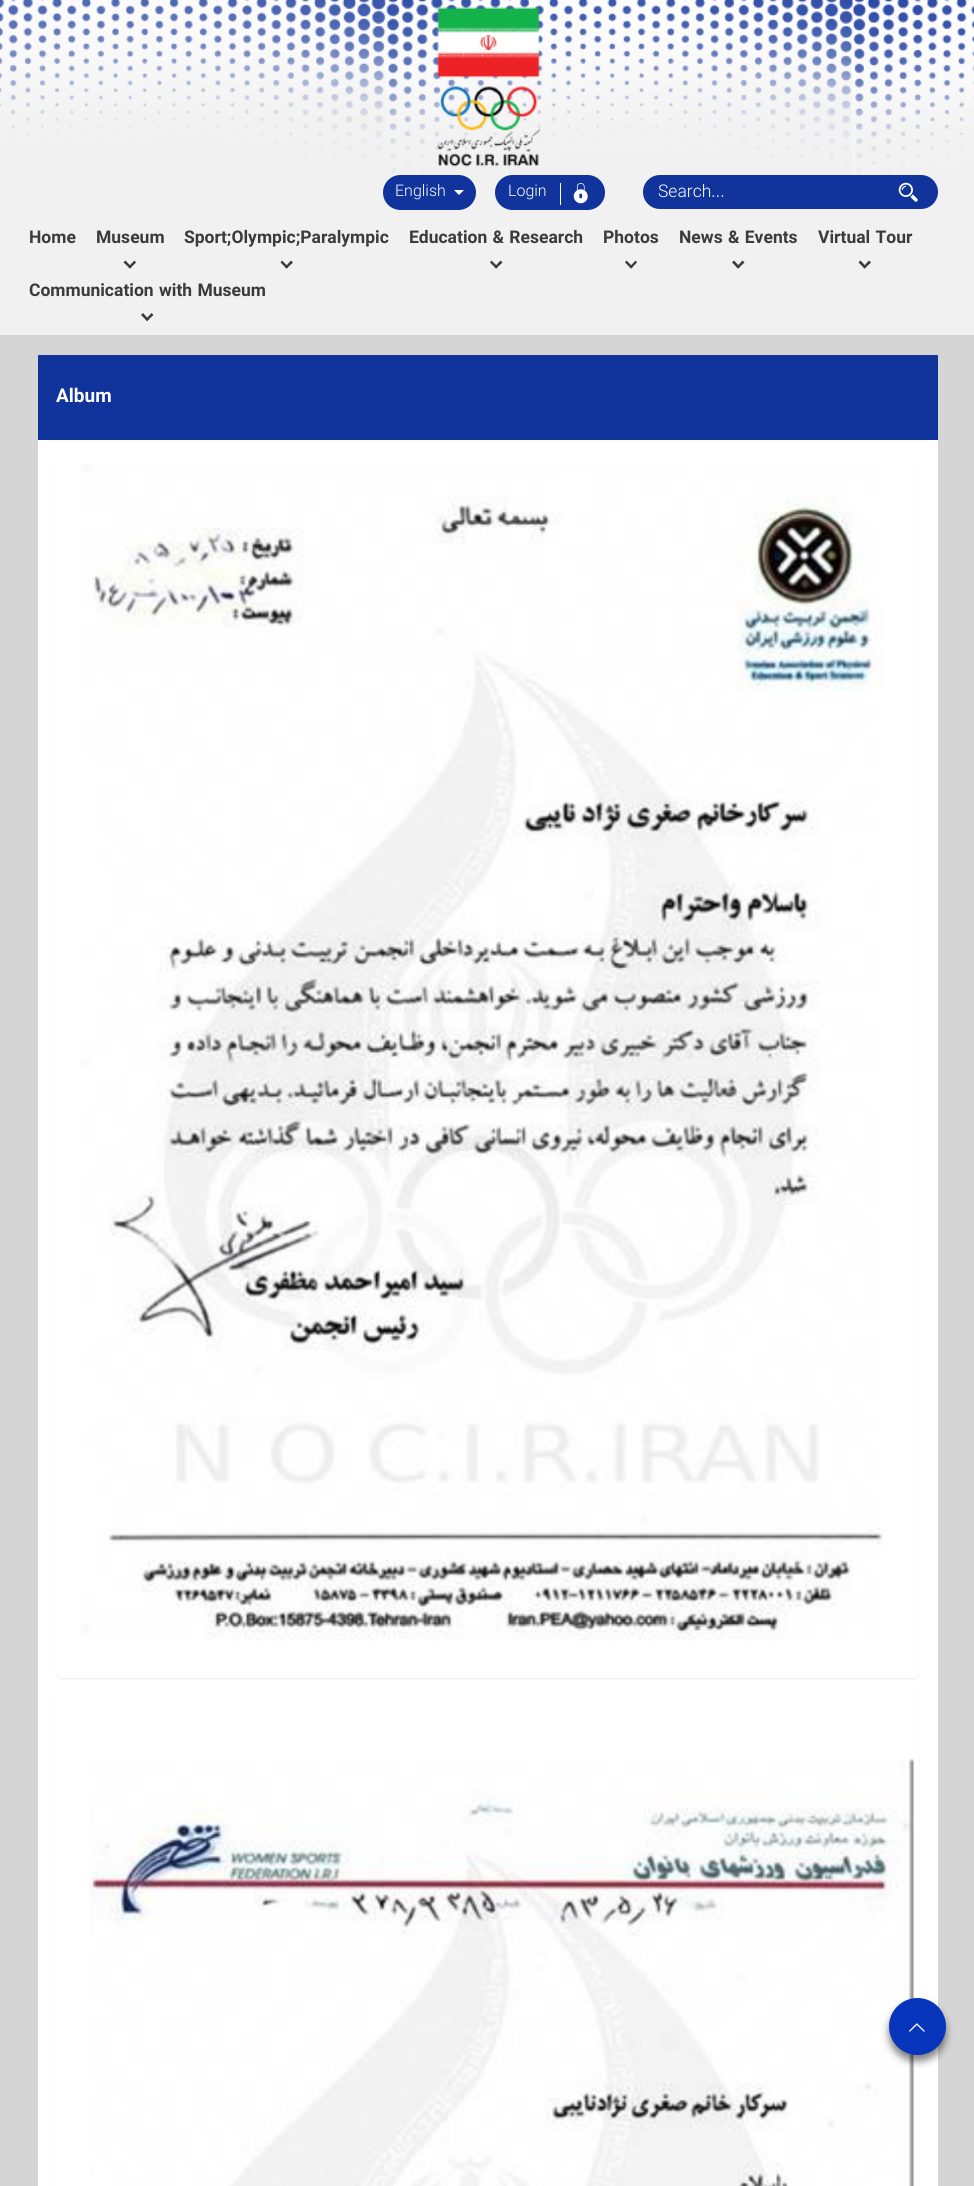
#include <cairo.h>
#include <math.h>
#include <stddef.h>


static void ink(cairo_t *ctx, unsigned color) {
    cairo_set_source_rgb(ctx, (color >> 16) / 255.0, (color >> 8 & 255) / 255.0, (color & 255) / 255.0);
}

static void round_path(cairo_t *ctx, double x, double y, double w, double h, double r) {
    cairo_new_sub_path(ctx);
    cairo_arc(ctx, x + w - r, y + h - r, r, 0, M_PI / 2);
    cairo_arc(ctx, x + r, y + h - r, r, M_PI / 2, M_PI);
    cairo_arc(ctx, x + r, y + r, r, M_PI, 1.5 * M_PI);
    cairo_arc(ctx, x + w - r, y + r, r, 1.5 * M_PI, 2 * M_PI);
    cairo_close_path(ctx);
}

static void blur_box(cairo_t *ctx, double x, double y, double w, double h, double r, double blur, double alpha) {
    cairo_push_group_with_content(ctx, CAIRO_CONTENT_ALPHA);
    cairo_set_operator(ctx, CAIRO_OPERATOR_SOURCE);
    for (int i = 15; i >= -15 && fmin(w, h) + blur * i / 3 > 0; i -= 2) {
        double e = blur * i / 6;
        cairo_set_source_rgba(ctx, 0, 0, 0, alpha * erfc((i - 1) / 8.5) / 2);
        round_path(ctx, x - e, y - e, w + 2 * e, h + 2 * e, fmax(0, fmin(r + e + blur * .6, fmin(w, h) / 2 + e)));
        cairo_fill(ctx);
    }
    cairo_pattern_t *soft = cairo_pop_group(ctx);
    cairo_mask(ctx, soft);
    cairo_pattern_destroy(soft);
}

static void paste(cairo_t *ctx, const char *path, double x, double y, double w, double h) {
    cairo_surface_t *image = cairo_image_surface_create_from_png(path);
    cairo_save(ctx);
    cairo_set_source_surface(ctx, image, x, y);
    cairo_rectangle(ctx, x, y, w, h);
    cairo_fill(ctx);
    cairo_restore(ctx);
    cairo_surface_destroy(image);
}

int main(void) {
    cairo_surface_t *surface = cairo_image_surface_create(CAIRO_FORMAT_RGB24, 974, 2186);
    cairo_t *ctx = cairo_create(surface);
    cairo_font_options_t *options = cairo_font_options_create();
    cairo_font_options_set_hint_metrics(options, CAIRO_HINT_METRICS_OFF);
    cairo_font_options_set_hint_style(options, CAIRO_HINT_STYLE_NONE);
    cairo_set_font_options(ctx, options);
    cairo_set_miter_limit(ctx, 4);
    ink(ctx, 0xD5D5D5);
    cairo_paint(ctx);
    ink(ctx, 0xF1F1F1);
    cairo_rectangle(ctx, 0, 0, 974, 335);
    cairo_fill(ctx);
    paste(ctx, "media/1.png", 0, 0, 974, 181);
    paste(ctx, "media/2.png", 437, 7, 104, 160);
    ink(ctx, 0x11349C);
    round_path(ctx, 383, 175, 93, 35, 17.5);
    cairo_fill(ctx);
    cairo_select_font_face(ctx, "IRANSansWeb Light", CAIRO_FONT_SLANT_NORMAL, CAIRO_FONT_WEIGHT_NORMAL);
    cairo_set_font_size(ctx, 16);
    ink(ctx, 0xFFFFFF);
    cairo_move_to(ctx, 395, 196);
    cairo_show_text(ctx, "English");
    cairo_new_path(ctx);
    cairo_move_to(ctx, 454, 190);
    cairo_line_to(ctx, 464, 190);
    cairo_line_to(ctx, 459, 195);
    cairo_close_path(ctx);
    cairo_fill(ctx);
    ink(ctx, 0x11349C);
    round_path(ctx, 495, 175, 110, 35, 17.5);
    cairo_fill(ctx);
    ink(ctx, 0xFFFFFF);
    cairo_move_to(ctx, 508, 196);
    cairo_show_text(ctx, "Login");
    cairo_rectangle(ctx, 560, 183, 1, 22);
    cairo_fill(ctx);
    paste(ctx, "media/3.png", 573, 183, 15, 21);
    ink(ctx, 0x11349C);
    round_path(ctx, 643, 175, 295, 34, 17);
    cairo_fill(ctx);
    cairo_set_font_size(ctx, 17.5);
    ink(ctx, 0xFFFFFF);
    cairo_move_to(ctx, 658, 197);
    cairo_show_text(ctx, "Search...");
    paste(ctx, "media/4.png", 898, 182, 20, 20);
    cairo_select_font_face(ctx, "IRANSansWeb", CAIRO_FONT_SLANT_NORMAL, CAIRO_FONT_WEIGHT_BOLD);
    ink(ctx, 0x3B3B3B);
    cairo_move_to(ctx, 29, 243);
    cairo_show_text(ctx, "Home");
    cairo_move_to(ctx, 96, 243);
    cairo_show_text(ctx, "Museum");
    cairo_new_path(ctx);
    cairo_move_to(ctx, 128, 267);
    cairo_line_to(ctx, 134.5, 260.5);
    cairo_line_to(ctx, 136, 262.5);
    cairo_line_to(ctx, 130, 268.5);
    cairo_close_path(ctx);
    cairo_fill(ctx);
    cairo_new_path(ctx);
    cairo_move_to(ctx, 123.5, 262.5);
    cairo_line_to(ctx, 125.5, 260.5);
    cairo_line_to(ctx, 131.5, 267);
    cairo_line_to(ctx, 130, 268.5);
    cairo_close_path(ctx);
    cairo_fill(ctx);
    cairo_move_to(ctx, 184, 243);
    cairo_show_text(ctx, "Sport;Olympic;Paralympic");
    cairo_new_path(ctx);
    cairo_move_to(ctx, 285, 267);
    cairo_line_to(ctx, 291, 260.5);
    cairo_line_to(ctx, 293, 262.5);
    cairo_line_to(ctx, 286.5, 268.5);
    cairo_close_path(ctx);
    cairo_fill(ctx);
    cairo_new_path(ctx);
    cairo_move_to(ctx, 280.5, 262.5);
    cairo_line_to(ctx, 282, 260.5);
    cairo_line_to(ctx, 288.5, 267);
    cairo_line_to(ctx, 286.5, 268.5);
    cairo_close_path(ctx);
    cairo_fill(ctx);
    cairo_move_to(ctx, 409, 243);
    cairo_show_text(ctx, "Education & Research");
    cairo_new_path(ctx);
    cairo_move_to(ctx, 494.5, 267);
    cairo_line_to(ctx, 500.5, 260.5);
    cairo_line_to(ctx, 502.5, 262.5);
    cairo_line_to(ctx, 496, 268.5);
    cairo_close_path(ctx);
    cairo_fill(ctx);
    cairo_new_path(ctx);
    cairo_move_to(ctx, 490, 262.5);
    cairo_line_to(ctx, 491.5, 260.5);
    cairo_line_to(ctx, 498, 267);
    cairo_line_to(ctx, 496, 268.5);
    cairo_close_path(ctx);
    cairo_fill(ctx);
    cairo_move_to(ctx, 603, 243);
    cairo_show_text(ctx, "Photos");
    cairo_new_path(ctx);
    cairo_move_to(ctx, 629.5, 267);
    cairo_line_to(ctx, 635.5, 260.5);
    cairo_line_to(ctx, 637, 262.5);
    cairo_line_to(ctx, 631, 268.5);
    cairo_close_path(ctx);
    cairo_fill(ctx);
    cairo_new_path(ctx);
    cairo_move_to(ctx, 625, 262.5);
    cairo_line_to(ctx, 626.5, 260.5);
    cairo_line_to(ctx, 633, 267);
    cairo_line_to(ctx, 631, 268.5);
    cairo_close_path(ctx);
    cairo_fill(ctx);
    cairo_move_to(ctx, 679, 243);
    cairo_show_text(ctx, "News & Events");
    cairo_new_path(ctx);
    cairo_move_to(ctx, 736.5, 267);
    cairo_line_to(ctx, 742.5, 260.5);
    cairo_line_to(ctx, 744.5, 262.5);
    cairo_line_to(ctx, 738, 268.5);
    cairo_close_path(ctx);
    cairo_fill(ctx);
    cairo_new_path(ctx);
    cairo_move_to(ctx, 732, 262.5);
    cairo_line_to(ctx, 734, 260.5);
    cairo_line_to(ctx, 740, 267);
    cairo_line_to(ctx, 738, 268.5);
    cairo_close_path(ctx);
    cairo_fill(ctx);
    cairo_move_to(ctx, 818, 243);
    cairo_show_text(ctx, "Virtual Tour");
    cairo_new_path(ctx);
    cairo_move_to(ctx, 863, 267);
    cairo_line_to(ctx, 869, 260.5);
    cairo_line_to(ctx, 871, 262.5);
    cairo_line_to(ctx, 864.5, 268.5);
    cairo_close_path(ctx);
    cairo_fill(ctx);
    cairo_new_path(ctx);
    cairo_move_to(ctx, 858.5, 262.5);
    cairo_line_to(ctx, 860.5, 260.5);
    cairo_line_to(ctx, 866.5, 267);
    cairo_line_to(ctx, 864.5, 268.5);
    cairo_close_path(ctx);
    cairo_fill(ctx);
    cairo_move_to(ctx, 29, 296);
    cairo_show_text(ctx, "Communication with Museum");
    cairo_new_path(ctx);
    cairo_move_to(ctx, 145.5, 319.5);
    cairo_line_to(ctx, 151.5, 313);
    cairo_line_to(ctx, 153.5, 315);
    cairo_line_to(ctx, 147, 321);
    cairo_close_path(ctx);
    cairo_fill(ctx);
    cairo_new_path(ctx);
    cairo_move_to(ctx, 141, 315);
    cairo_line_to(ctx, 143, 313);
    cairo_line_to(ctx, 149, 319.5);
    cairo_line_to(ctx, 147, 321);
    cairo_close_path(ctx);
    cairo_fill(ctx);
    ink(ctx, 0xFFFFFF);
    cairo_rectangle(ctx, 38, 440, 900, 1746);
    cairo_fill(ctx);
    ink(ctx, 0x11349C);
    cairo_rectangle(ctx, 38, 355, 900, 85);
    cairo_fill(ctx);
    cairo_set_font_size(ctx, 19);
    ink(ctx, 0xFFFFFF);
    cairo_move_to(ctx, 56, 402);
    cairo_show_text(ctx, "Album");
    ink(ctx, 0x000000);
    blur_box(ctx, 56, 460, 863, 1219, 5, 1, 0.07);
    ink(ctx, 0xFFFFFF);
    round_path(ctx, 56, 459, 863, 1219, 5);
    cairo_fill(ctx);
    paste(ctx, "media/5.png", 80, 464, 804, 1177);
    ink(ctx, 0x000000);
    blur_box(ctx, 56, 1691, 863, 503, 5, 1, 0.07);
    ink(ctx, 0xFFFFFF);
    round_path(ctx, 56, 1690, 863, 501, 5);
    cairo_fill(ctx);
    paste(ctx, "media/6.png", 89, 1758, 826, 428);
    ink(ctx, 0x000000);
    blur_box(ctx, 889, 2004, 57, 57, 28.5, 4, 0.5);
    ink(ctx, 0x0635BC);
    cairo_arc(ctx, 917.5, 2026.5, 28.5, 0, 2 * M_PI);
    cairo_fill(ctx);
    paste(ctx, "media/7.png", 909, 2023, 16, 9);
    cairo_surface_write_to_png(surface, "image.png");
    cairo_font_options_destroy(options);
    cairo_destroy(ctx);
    cairo_surface_destroy(surface);
    return 0;
}
